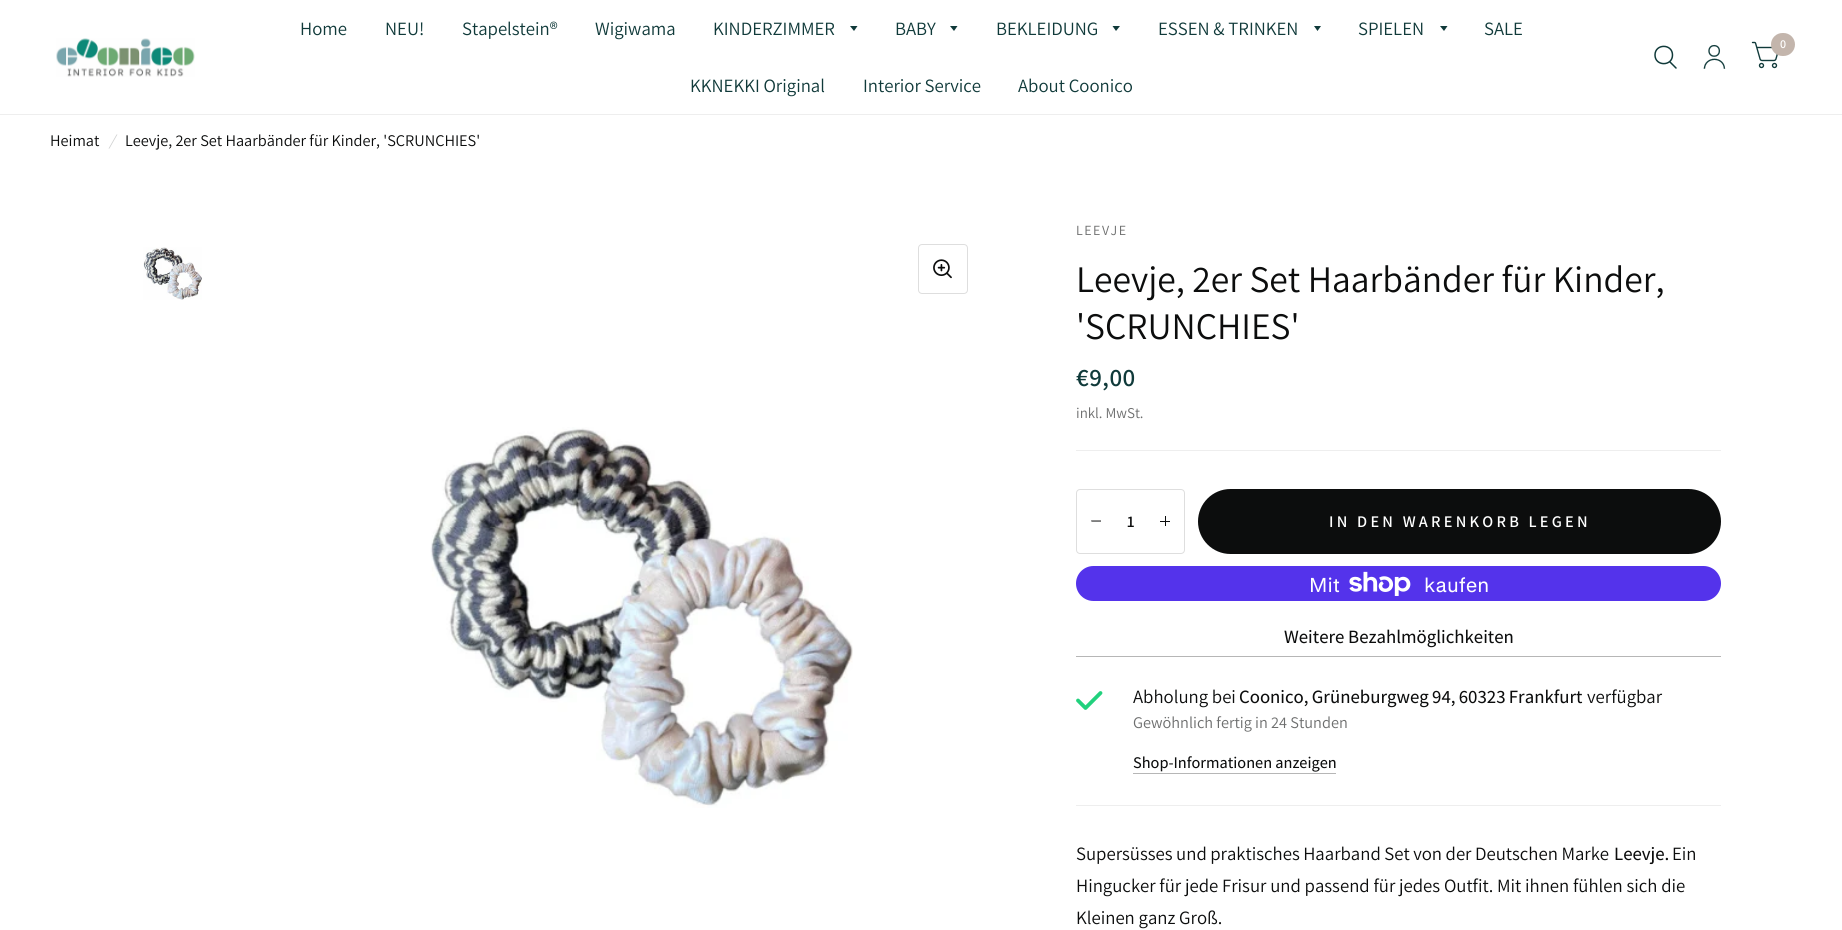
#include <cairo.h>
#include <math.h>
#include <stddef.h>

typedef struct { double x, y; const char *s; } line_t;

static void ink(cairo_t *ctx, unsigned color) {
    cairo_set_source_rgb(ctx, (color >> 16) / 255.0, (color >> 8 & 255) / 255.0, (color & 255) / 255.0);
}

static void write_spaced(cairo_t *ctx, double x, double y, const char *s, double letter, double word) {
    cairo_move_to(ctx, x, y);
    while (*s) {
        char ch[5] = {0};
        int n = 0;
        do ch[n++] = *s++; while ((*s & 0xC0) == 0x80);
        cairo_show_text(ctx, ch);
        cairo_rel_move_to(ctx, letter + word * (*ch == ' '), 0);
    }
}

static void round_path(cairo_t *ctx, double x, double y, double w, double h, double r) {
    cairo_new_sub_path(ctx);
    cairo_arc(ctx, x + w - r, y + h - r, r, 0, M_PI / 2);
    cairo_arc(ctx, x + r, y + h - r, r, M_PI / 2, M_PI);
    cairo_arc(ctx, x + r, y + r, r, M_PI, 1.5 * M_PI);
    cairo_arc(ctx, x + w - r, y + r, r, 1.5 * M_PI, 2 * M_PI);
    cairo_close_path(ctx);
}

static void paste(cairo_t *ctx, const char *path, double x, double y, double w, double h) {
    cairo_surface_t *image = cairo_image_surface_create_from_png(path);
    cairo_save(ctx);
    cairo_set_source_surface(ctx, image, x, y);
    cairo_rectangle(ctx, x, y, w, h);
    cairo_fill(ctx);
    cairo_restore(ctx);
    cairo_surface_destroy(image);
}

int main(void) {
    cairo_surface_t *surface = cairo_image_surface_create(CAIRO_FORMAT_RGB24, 1842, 930);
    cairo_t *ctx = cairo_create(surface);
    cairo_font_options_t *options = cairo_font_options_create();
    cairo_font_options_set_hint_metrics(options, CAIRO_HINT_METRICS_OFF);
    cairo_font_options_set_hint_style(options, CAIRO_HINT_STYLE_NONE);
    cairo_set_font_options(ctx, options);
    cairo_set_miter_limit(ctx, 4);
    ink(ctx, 0xFFFFFF);
    cairo_paint(ctx);
    ink(ctx, 0xEEEEEE);
    cairo_rectangle(ctx, 0, 114, 1842, 1);
    cairo_fill(ctx);
    paste(ctx, "media/1.png", 56, 38, 139, 39);
    cairo_select_font_face(ctx, "Assistant", CAIRO_FONT_SLANT_NORMAL, CAIRO_FONT_WEIGHT_NORMAL);
    cairo_set_font_size(ctx, 18.75);
    ink(ctx, 0x103A3A);
    {
        static const line_t items[] = {
            {300, 35, "Home"},
            {385, 35, "NEU!"},
            {462, 35, "Stapelstein®"},
            {595, 35, "Wigiwama"},
            {713, 35, "KINDERZIMMER"},
        };
        for (size_t i = 0; i < sizeof items / sizeof *items; i++) {
            cairo_move_to(ctx, items[i].x, items[i].y);
            cairo_show_text(ctx, items[i].s);
        }
    }
    cairo_new_path(ctx);
    cairo_move_to(ctx, 850, 26);
    cairo_line_to(ctx, 857.5, 26);
    cairo_line_to(ctx, 854, 31);
    cairo_close_path(ctx);
    cairo_fill(ctx);
    cairo_move_to(ctx, 895, 35);
    cairo_show_text(ctx, "BABY");
    cairo_new_path(ctx);
    cairo_move_to(ctx, 950, 26);
    cairo_line_to(ctx, 957.5, 26);
    cairo_line_to(ctx, 954, 31);
    cairo_close_path(ctx);
    cairo_fill(ctx);
    cairo_move_to(ctx, 996, 35);
    cairo_show_text(ctx, "BEKLEIDUNG");
    cairo_new_path(ctx);
    cairo_move_to(ctx, 1112.5, 26);
    cairo_line_to(ctx, 1120, 26);
    cairo_line_to(ctx, 1116, 31);
    cairo_close_path(ctx);
    cairo_fill(ctx);
    cairo_move_to(ctx, 1158, 35);
    cairo_show_text(ctx, "ESSEN & TRINKEN");
    cairo_new_path(ctx);
    cairo_move_to(ctx, 1314, 26);
    cairo_line_to(ctx, 1321, 26);
    cairo_line_to(ctx, 1317.5, 31);
    cairo_close_path(ctx);
    cairo_fill(ctx);
    cairo_move_to(ctx, 1358, 35);
    cairo_show_text(ctx, "SPIELEN");
    cairo_new_path(ctx);
    cairo_move_to(ctx, 1440, 26);
    cairo_line_to(ctx, 1447.5, 26);
    cairo_line_to(ctx, 1444, 31);
    cairo_close_path(ctx);
    cairo_fill(ctx);
    {
        static const line_t items[] = {
            {1484, 35, "SALE"},
            {690, 92, "KKNEKKI Original"},
            {863, 92, "Interior Service"},
            {1018, 92, "About Coonico"},
        };
        for (size_t i = 0; i < sizeof items / sizeof *items; i++) {
            cairo_move_to(ctx, items[i].x, items[i].y);
            cairo_show_text(ctx, items[i].s);
        }
    }
    cairo_new_path(ctx);
    cairo_move_to(ctx, 1670, 62);
    cairo_line_to(ctx, 1676, 68);
    cairo_move_to(ctx, 1672.5, 55);
    cairo_curve_to(ctx, 1672.5, 66.5, 1655, 66.5, 1655, 55);
    cairo_curve_to(ctx, 1655, 43.5, 1672.5, 43.5, 1672.5, 55);
    cairo_close_path(ctx);
    cairo_set_line_width(ctx, 1.5);
    cairo_set_line_cap(ctx, CAIRO_LINE_CAP_ROUND);
    cairo_set_line_join(ctx, CAIRO_LINE_JOIN_ROUND);
    cairo_stroke(ctx);
    paste(ctx, "media/2.png", 1703, 44, 23, 25);
    paste(ctx, "media/3.png", 1751, 41, 27, 28);
    ink(ctx, 0xC3B5AC);
    round_path(ctx, 1771, 33, 24, 23, 11.5);
    cairo_fill(ctx);
    cairo_select_font_face(ctx, "Assistant SemiBold", CAIRO_FONT_SLANT_NORMAL, CAIRO_FONT_WEIGHT_NORMAL);
    cairo_set_font_size(ctx, 12);
    ink(ctx, 0xFFFFFF);
    cairo_move_to(ctx, 1780, 48);
    cairo_show_text(ctx, "0");
    cairo_select_font_face(ctx, "Assistant", CAIRO_FONT_SLANT_NORMAL, CAIRO_FONT_WEIGHT_NORMAL);
    cairo_set_font_size(ctx, 16.25);
    ink(ctx, 0x0C0D0D);
    cairo_move_to(ctx, 50, 146);
    cairo_show_text(ctx, "Heimat");
    cairo_select_font_face(ctx, "Assistant", CAIRO_FONT_SLANT_ITALIC, CAIRO_FONT_WEIGHT_NORMAL);
    ink(ctx, 0xCECFCF);
    cairo_move_to(ctx, 109, 146);
    cairo_show_text(ctx, "/");
    cairo_select_font_face(ctx, "Assistant", CAIRO_FONT_SLANT_NORMAL, CAIRO_FONT_WEIGHT_NORMAL);
    ink(ctx, 0x0C0D0D);
    cairo_move_to(ctx, 125, 146);
    cairo_show_text(ctx, "Leevje, 2er Set Haarbänder für Kinder, 'SCRUNCHIES'");
    paste(ctx, "media/4.png", 143, 247, 59, 53);
    round_path(ctx, 918.5, 244.5, 49, 49, 3.5);
    ink(ctx, 0xDEDEDE);
    cairo_set_line_width(ctx, 1);
    cairo_set_line_cap(ctx, CAIRO_LINE_CAP_BUTT);
    cairo_set_line_join(ctx, CAIRO_LINE_JOIN_MITER);
    cairo_stroke(ctx);
    paste(ctx, "media/5.png", 933, 259, 19, 20);
    paste(ctx, "media/6.png", 430, 427, 423, 381);
    cairo_set_font_size(ctx, 14);
    ink(ctx, 0x6D6E6E);
    write_spaced(ctx, 1076, 235, "LEEVJE", 1.5, 0);
    ink(ctx, 0xEEEEEE);
    cairo_rectangle(ctx, 1076, 450, 645, 1);
    cairo_fill(ctx);
    cairo_set_font_size(ctx, 37.5);
    ink(ctx, 0x0C0D0D);
    cairo_move_to(ctx, 1076, 292);
    cairo_show_text(ctx, "Leevje, 2er Set Haarbänder für Kinder,");
    cairo_move_to(ctx, 1076, 339);
    cairo_show_text(ctx, "'SCRUNCHIES'");
    cairo_select_font_face(ctx, "Assistant SemiBold", CAIRO_FONT_SLANT_NORMAL, CAIRO_FONT_WEIGHT_NORMAL);
    cairo_set_font_size(ctx, 25);
    ink(ctx, 0x103A3A);
    write_spaced(ctx, 1076, 386, "€9,00", 0.5, 0);
    cairo_select_font_face(ctx, "Assistant", CAIRO_FONT_SLANT_NORMAL, CAIRO_FONT_WEIGHT_NORMAL);
    cairo_set_font_size(ctx, 15);
    ink(ctx, 0x6D6E6E);
    cairo_move_to(ctx, 1076, 418);
    cairo_show_text(ctx, "inkl. MwSt.");
    round_path(ctx, 1076.5, 489.5, 108, 64, 3.5);
    ink(ctx, 0xDEDEDE);
    cairo_stroke(ctx);
    ink(ctx, 0x0C0D0D);
    cairo_new_path(ctx);
    cairo_move_to(ctx, 1091.5, 521.5);
    cairo_line_to(ctx, 1091, 520.5);
    cairo_line_to(ctx, 1101, 520.5);
    cairo_line_to(ctx, 1101, 521.5);
    cairo_close_path(ctx);
    cairo_fill(ctx);
    cairo_select_font_face(ctx, "Assistant SemiBold", CAIRO_FONT_SLANT_NORMAL, CAIRO_FONT_WEIGHT_NORMAL);
    cairo_set_font_size(ctx, 16.25);
    cairo_move_to(ctx, 1127, 527);
    cairo_show_text(ctx, "1");
    cairo_rectangle(ctx, 1165, 516, 1, 10);
    cairo_fill(ctx);
    cairo_rectangle(ctx, 1160, 521, 10, 1);
    cairo_fill(ctx);
    round_path(ctx, 1198, 489, 523, 65, 32.5);
    cairo_fill(ctx);
    ink(ctx, 0xFFFFFF);
    write_spaced(ctx, 1329, 527, "IN DEN WARENKORB LEGEN", 3.25, 0);
    ink(ctx, 0x5433EB);
    round_path(ctx, 1076, 566, 645, 35, 17.5);
    cairo_fill(ctx);
    cairo_select_font_face(ctx, "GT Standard", CAIRO_FONT_SLANT_NORMAL, CAIRO_FONT_WEIGHT_NORMAL);
    cairo_set_font_size(ctx, 20);
    ink(ctx, 0xFFFFFF);
    cairo_move_to(ctx, 1309, 592);
    cairo_show_text(ctx, "Mit");
    paste(ctx, "media/7.png", 1349, 571, 62, 25);
    cairo_move_to(ctx, 1424, 592);
    cairo_show_text(ctx, "kaufen");
    cairo_select_font_face(ctx, "Assistant Medium", CAIRO_FONT_SLANT_NORMAL, CAIRO_FONT_WEIGHT_NORMAL);
    cairo_set_font_size(ctx, 18.75);
    ink(ctx, 0x0C0D0D);
    cairo_move_to(ctx, 1284, 643);
    cairo_show_text(ctx, "Weitere Bezahlmöglichkeiten");
    ink(ctx, 0xB6B6B6);
    cairo_rectangle(ctx, 1076, 656, 645, 1);
    cairo_fill(ctx);
    ink(ctx, 0xEEEEEE);
    cairo_rectangle(ctx, 1076, 805, 645, 1);
    cairo_fill(ctx);
    cairo_new_path(ctx);
    cairo_move_to(ctx, 1100.5, 693);
    cairo_line_to(ctx, 1085.5, 708);
    cairo_line_to(ctx, 1078, 700.5);
    ink(ctx, 0x21D17D);
    cairo_set_line_width(ctx, 3.8);
    cairo_set_line_cap(ctx, CAIRO_LINE_CAP_ROUND);
    cairo_set_line_join(ctx, CAIRO_LINE_JOIN_ROUND);
    cairo_stroke(ctx);
    cairo_select_font_face(ctx, "Assistant", CAIRO_FONT_SLANT_NORMAL, CAIRO_FONT_WEIGHT_NORMAL);
    ink(ctx, 0x0C0D0D);
    cairo_move_to(ctx, 1133, 703);
    cairo_show_text(ctx, "Abholung bei");
    cairo_select_font_face(ctx, "Assistant Medium", CAIRO_FONT_SLANT_NORMAL, CAIRO_FONT_WEIGHT_NORMAL);
    write_spaced(ctx, 1239, 703, "Coonico, Grüneburgweg 94, 60323 Frankfurt", 0, -0.5);
    cairo_select_font_face(ctx, "Assistant", CAIRO_FONT_SLANT_NORMAL, CAIRO_FONT_WEIGHT_NORMAL);
    cairo_move_to(ctx, 1587, 703);
    cairo_show_text(ctx, "verfügbar");
    cairo_set_font_size(ctx, 16.25);
    ink(ctx, 0x6D6E6E);
    cairo_move_to(ctx, 1133, 728);
    cairo_show_text(ctx, "Gewöhnlich fertig in 24 Stunden");
    cairo_select_font_face(ctx, "Assistant Medium", CAIRO_FONT_SLANT_NORMAL, CAIRO_FONT_WEIGHT_NORMAL);
    ink(ctx, 0x0C0D0D);
    cairo_move_to(ctx, 1133, 768);
    cairo_show_text(ctx, "Shop-Informationen anzeigen");
    ink(ctx, 0xB6B6B6);
    cairo_rectangle(ctx, 1133, 773, 203, 1);
    cairo_fill(ctx);
    cairo_select_font_face(ctx, "Assistant", CAIRO_FONT_SLANT_NORMAL, CAIRO_FONT_WEIGHT_NORMAL);
    cairo_set_font_size(ctx, 18.75);
    ink(ctx, 0x0C0D0D);
    write_spaced(ctx, 1076, 860, "Supersüsses und praktisches Haarband Set von der Deutschen Marke", 0, -0.25);
    cairo_select_font_face(ctx, "Assistant Medium", CAIRO_FONT_SLANT_NORMAL, CAIRO_FONT_WEIGHT_NORMAL);
    cairo_move_to(ctx, 1614, 860);
    cairo_show_text(ctx, "Leevje.");
    cairo_select_font_face(ctx, "Assistant", CAIRO_FONT_SLANT_NORMAL, CAIRO_FONT_WEIGHT_NORMAL);
    {
        static const line_t items[] = {
            {1672, 860, "Ein"},
            {1076, 892, "Hingucker für jede Frisur und passend für jedes Outfit. Mit ihnen fühlen sich die"},
            {1076, 924, "Kleinen ganz Groß."},
        };
        for (size_t i = 0; i < sizeof items / sizeof *items; i++) {
            cairo_move_to(ctx, items[i].x, items[i].y);
            cairo_show_text(ctx, items[i].s);
        }
    }
    cairo_surface_write_to_png(surface, "image.png");
    cairo_font_options_destroy(options);
    cairo_destroy(ctx);
    cairo_surface_destroy(surface);
    return 0;
}
